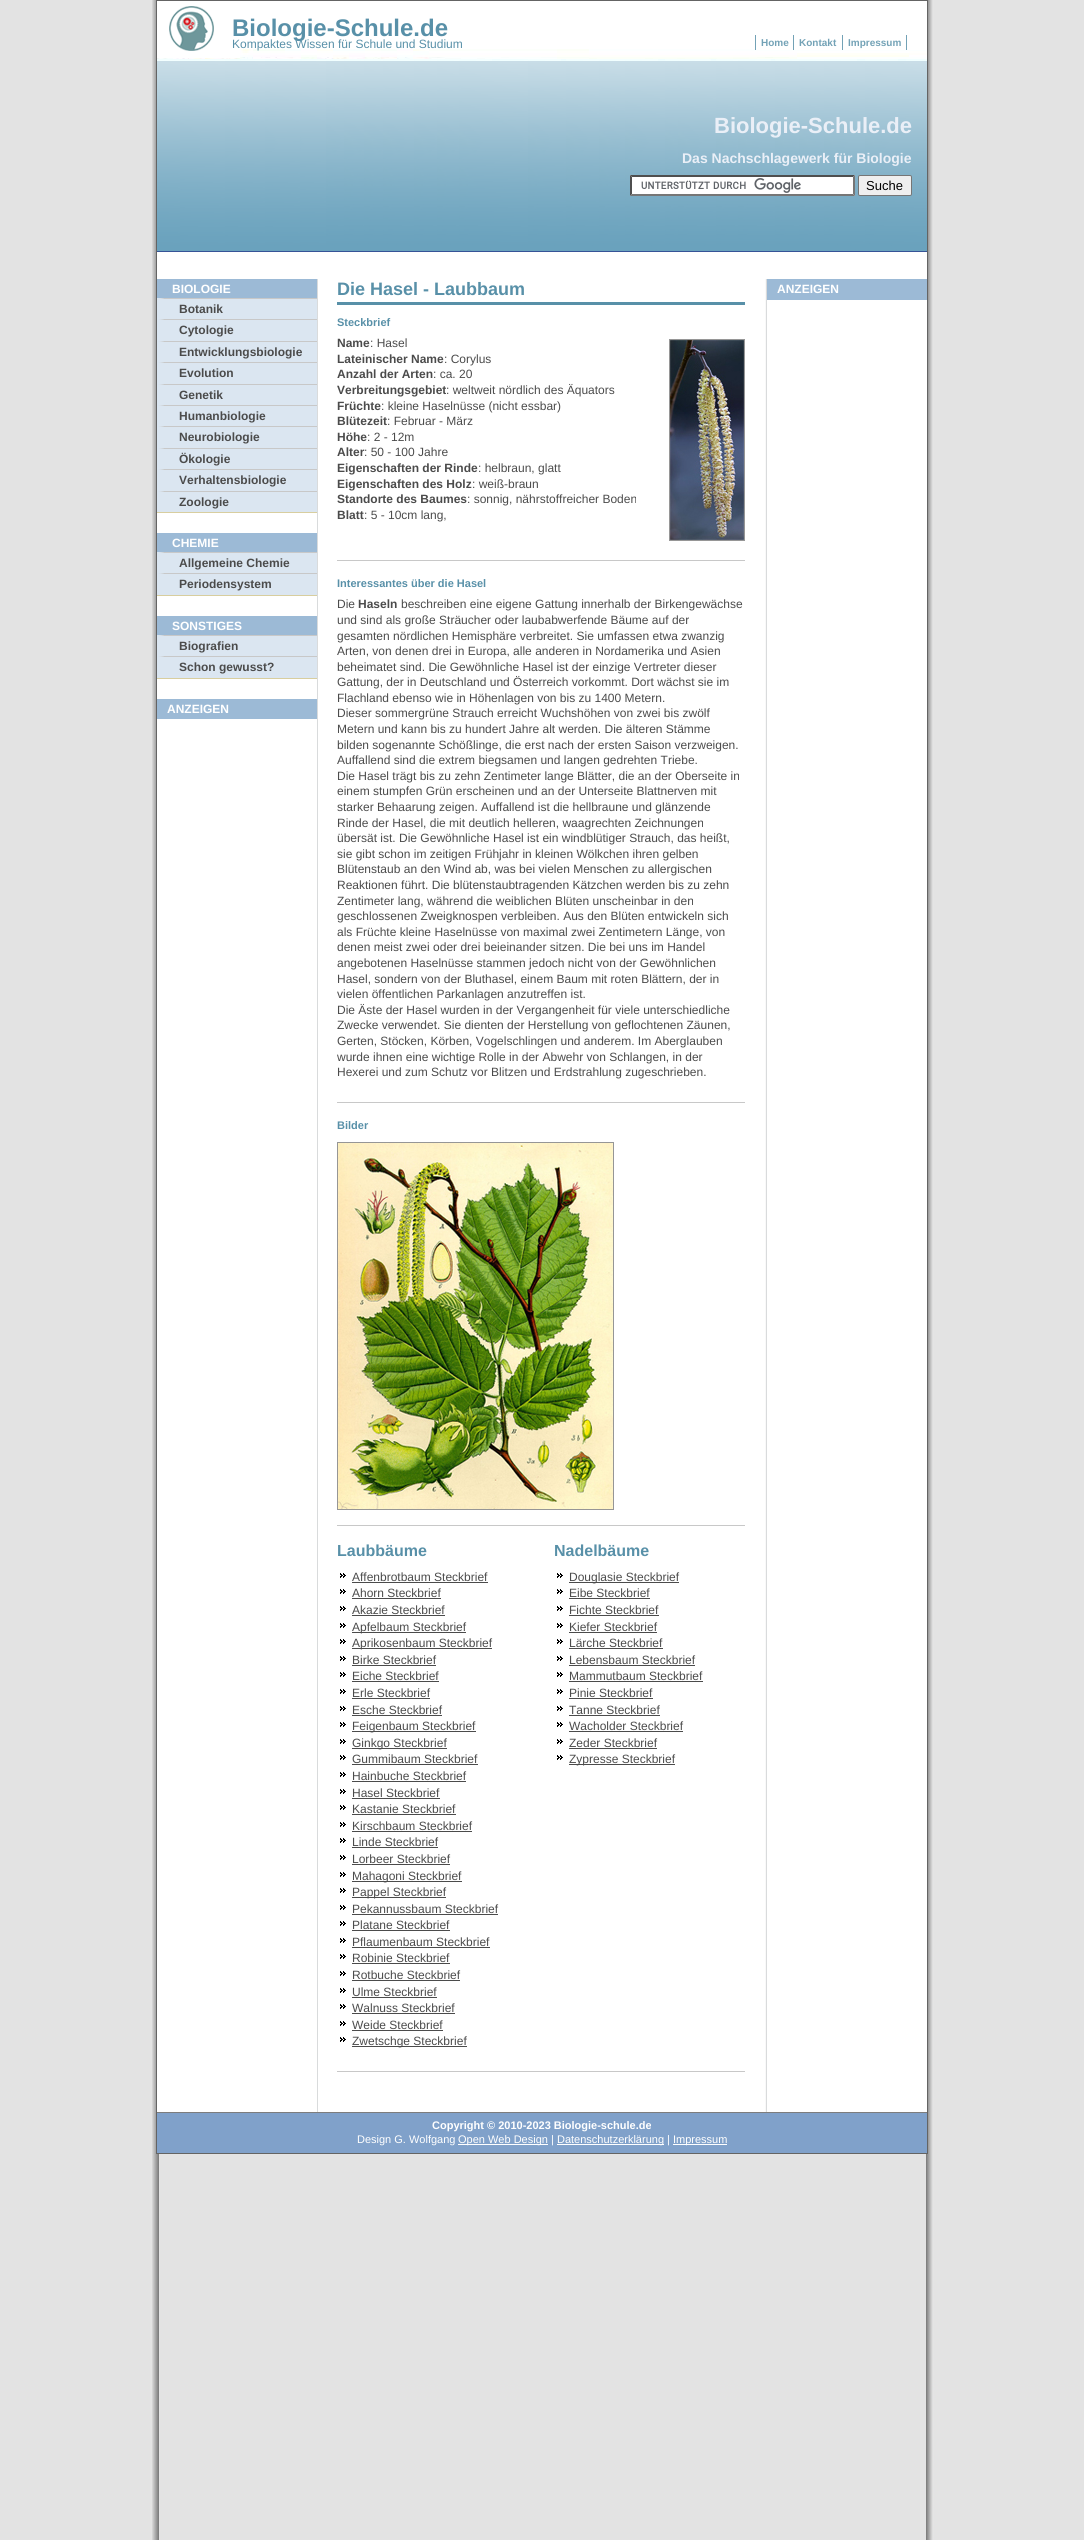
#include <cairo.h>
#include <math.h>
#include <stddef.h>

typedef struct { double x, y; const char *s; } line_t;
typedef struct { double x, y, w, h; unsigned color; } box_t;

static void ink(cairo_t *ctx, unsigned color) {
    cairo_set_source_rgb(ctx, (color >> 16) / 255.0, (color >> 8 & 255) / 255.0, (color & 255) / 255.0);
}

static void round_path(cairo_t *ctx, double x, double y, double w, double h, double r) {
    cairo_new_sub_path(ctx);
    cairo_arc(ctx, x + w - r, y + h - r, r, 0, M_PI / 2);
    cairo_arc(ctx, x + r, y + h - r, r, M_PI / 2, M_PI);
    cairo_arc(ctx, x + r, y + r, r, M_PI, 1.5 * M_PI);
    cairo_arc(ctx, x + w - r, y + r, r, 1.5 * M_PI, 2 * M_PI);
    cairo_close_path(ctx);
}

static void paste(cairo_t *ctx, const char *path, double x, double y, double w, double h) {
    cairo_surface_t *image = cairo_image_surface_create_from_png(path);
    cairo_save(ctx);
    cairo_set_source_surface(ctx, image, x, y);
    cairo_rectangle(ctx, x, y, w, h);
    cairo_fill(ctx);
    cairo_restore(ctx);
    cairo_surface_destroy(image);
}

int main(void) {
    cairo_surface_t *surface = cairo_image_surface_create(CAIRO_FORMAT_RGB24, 1084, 2540);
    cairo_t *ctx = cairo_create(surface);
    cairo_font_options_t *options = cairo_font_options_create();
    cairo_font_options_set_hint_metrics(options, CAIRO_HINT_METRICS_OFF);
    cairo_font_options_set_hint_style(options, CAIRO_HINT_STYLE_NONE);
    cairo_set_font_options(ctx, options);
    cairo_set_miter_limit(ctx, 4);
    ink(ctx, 0xFFFFFF);
    cairo_paint(ctx);
    paste(ctx, "media/1.png", 0, 0, 1084, 2540);
    paste(ctx, "media/2.png", 157, 279, 770, 1833);
    cairo_rectangle(ctx, 156.5, 0.5, 771, 2153);
    ink(ctx, 0x646464);
    cairo_set_line_width(ctx, 1);
    cairo_stroke(ctx);
    paste(ctx, "media/3.png", 157, 1, 770, 250);
    cairo_select_font_face(ctx, "Liberation Sans", CAIRO_FONT_SLANT_NORMAL, CAIRO_FONT_WEIGHT_BOLD);
    cairo_set_font_size(ctx, 24);
    ink(ctx, 0x5890A8);
    cairo_move_to(ctx, 232, 36);
    cairo_show_text(ctx, "Biologie-Schule.de");
    cairo_select_font_face(ctx, "Liberation Sans", CAIRO_FONT_SLANT_NORMAL, CAIRO_FONT_WEIGHT_NORMAL);
    cairo_set_font_size(ctx, 12);
    cairo_move_to(ctx, 232, 48);
    cairo_show_text(ctx, "Kompaktes Wissen für Schule und Studium");
    {
        static const box_t items[] = {
            {756, 49, 171, 1, 0xFFFFFF},
            {755, 35, 1, 15, 0x73A2B6},
            {793, 35, 1, 15, 0x73A2B6},
        };
        for (size_t i = 0; i < sizeof items / sizeof *items; i++) {
            ink(ctx, items[i].color);
            cairo_rectangle(ctx, items[i].x, items[i].y, items[i].w, items[i].h);
            cairo_fill(ctx);
        }
    }
    cairo_select_font_face(ctx, "Liberation Sans", CAIRO_FONT_SLANT_NORMAL, CAIRO_FONT_WEIGHT_BOLD);
    cairo_set_font_size(ctx, 10);
    cairo_move_to(ctx, 761, 46);
    cairo_show_text(ctx, "Home");
    cairo_rectangle(ctx, 842, 35, 1, 15);
    cairo_fill(ctx);
    cairo_move_to(ctx, 799, 46);
    cairo_show_text(ctx, "Kontakt");
    cairo_rectangle(ctx, 906, 35, 1, 15);
    cairo_fill(ctx);
    cairo_move_to(ctx, 848, 46);
    cairo_show_text(ctx, "Impressum");
    cairo_set_font_size(ctx, 22);
    ink(ctx, 0xEAEFF7);
    cairo_move_to(ctx, 714, 133);
    cairo_show_text(ctx, "Biologie-Schule.de");
    cairo_set_font_size(ctx, 14);
    cairo_move_to(ctx, 682, 163);
    cairo_show_text(ctx, "Das Nachschlagewerk für Biologie");
    ink(ctx, 0xFFFFFF);
    cairo_rectangle(ctx, 630, 175, 225, 21);
    cairo_fill(ctx);
    paste(ctx, "media/4.png", 641, 178, 160, 15);
    ink(ctx, 0x4F4F4F);
    cairo_new_path(ctx);
    cairo_move_to(ctx, 630, 175);
    cairo_line_to(ctx, 855, 175);
    cairo_line_to(ctx, 853, 177);
    cairo_line_to(ctx, 632, 177);
    cairo_close_path(ctx);
    cairo_fill(ctx);
    ink(ctx, 0x767676);
    cairo_new_path(ctx);
    cairo_move_to(ctx, 855, 175);
    cairo_line_to(ctx, 855, 196);
    cairo_line_to(ctx, 853, 194);
    cairo_line_to(ctx, 853, 177);
    cairo_close_path(ctx);
    cairo_fill(ctx);
    cairo_new_path(ctx);
    cairo_move_to(ctx, 855, 196);
    cairo_line_to(ctx, 630, 196);
    cairo_line_to(ctx, 632, 194);
    cairo_line_to(ctx, 853, 194);
    cairo_close_path(ctx);
    cairo_fill(ctx);
    ink(ctx, 0x4F4F4F);
    cairo_new_path(ctx);
    cairo_move_to(ctx, 630, 196);
    cairo_line_to(ctx, 630, 175);
    cairo_line_to(ctx, 632, 177);
    cairo_line_to(ctx, 632, 194);
    cairo_close_path(ctx);
    cairo_fill(ctx);
    ink(ctx, 0xEFEFEF);
    round_path(ctx, 858.5, 175.5, 53, 20, 1.5);
    cairo_fill_preserve(ctx);
    ink(ctx, 0x767676);
    cairo_stroke(ctx);
    cairo_select_font_face(ctx, "Liberation Sans", CAIRO_FONT_SLANT_NORMAL, CAIRO_FONT_WEIGHT_NORMAL);
    cairo_set_font_size(ctx, 13);
    ink(ctx, 0x000000);
    cairo_move_to(ctx, 866, 190);
    cairo_show_text(ctx, "Suche");
    {
        static const box_t items[] = {
            {157, 251, 770, 1, 0x365397},
            {157, 252, 770, 27, 0xFFFFFF},
            {157, 298, 160, 214, 0xDBE6F1},
            {157, 512, 160, 1, 0xD8CE9F},
            {157, 279, 160, 19, 0x9CBAD6},
        };
        for (size_t i = 0; i < sizeof items / sizeof *items; i++) {
            ink(ctx, items[i].color);
            cairo_rectangle(ctx, items[i].x, items[i].y, items[i].w, items[i].h);
            cairo_fill(ctx);
        }
    }
    cairo_select_font_face(ctx, "Liberation Sans", CAIRO_FONT_SLANT_NORMAL, CAIRO_FONT_WEIGHT_BOLD);
    cairo_set_font_size(ctx, 12);
    ink(ctx, 0xFFFFFF);
    cairo_move_to(ctx, 172, 293);
    cairo_show_text(ctx, "BIOLOGIE");
    ink(ctx, 0xC8C8C8);
    cairo_new_path(ctx);
    cairo_move_to(ctx, 157, 298);
    cairo_line_to(ctx, 317, 298);
    cairo_line_to(ctx, 317, 299);
    cairo_line_to(ctx, 164, 299);
    cairo_close_path(ctx);
    cairo_fill(ctx);
    ink(ctx, 0xDBE6F1);
    cairo_new_path(ctx);
    cairo_move_to(ctx, 157, 319);
    cairo_line_to(ctx, 157, 298);
    cairo_line_to(ctx, 164, 299);
    cairo_line_to(ctx, 164, 319);
    cairo_close_path(ctx);
    cairo_fill(ctx);
    ink(ctx, 0x4B4B4B);
    cairo_move_to(ctx, 179, 313);
    cairo_show_text(ctx, "Botanik");
    ink(ctx, 0xC8C8C8);
    cairo_new_path(ctx);
    cairo_move_to(ctx, 157, 319);
    cairo_line_to(ctx, 317, 319);
    cairo_line_to(ctx, 317, 320);
    cairo_line_to(ctx, 164, 320);
    cairo_close_path(ctx);
    cairo_fill(ctx);
    ink(ctx, 0xDBE6F1);
    cairo_new_path(ctx);
    cairo_move_to(ctx, 157, 341);
    cairo_line_to(ctx, 157, 319);
    cairo_line_to(ctx, 164, 320);
    cairo_line_to(ctx, 164, 341);
    cairo_close_path(ctx);
    cairo_fill(ctx);
    ink(ctx, 0x4B4B4B);
    cairo_move_to(ctx, 179, 334);
    cairo_show_text(ctx, "Cytologie");
    ink(ctx, 0xC8C8C8);
    cairo_new_path(ctx);
    cairo_move_to(ctx, 157, 341);
    cairo_line_to(ctx, 317, 341);
    cairo_line_to(ctx, 317, 342);
    cairo_line_to(ctx, 164, 342);
    cairo_close_path(ctx);
    cairo_fill(ctx);
    ink(ctx, 0xDBE6F1);
    cairo_new_path(ctx);
    cairo_move_to(ctx, 157, 362);
    cairo_line_to(ctx, 157, 341);
    cairo_line_to(ctx, 164, 342);
    cairo_line_to(ctx, 164, 362);
    cairo_close_path(ctx);
    cairo_fill(ctx);
    ink(ctx, 0x4B4B4B);
    cairo_move_to(ctx, 179, 356);
    cairo_show_text(ctx, "Entwicklungsbiologie");
    ink(ctx, 0xC8C8C8);
    cairo_new_path(ctx);
    cairo_move_to(ctx, 157, 362);
    cairo_line_to(ctx, 317, 362);
    cairo_line_to(ctx, 317, 363);
    cairo_line_to(ctx, 164, 363);
    cairo_close_path(ctx);
    cairo_fill(ctx);
    ink(ctx, 0xDBE6F1);
    cairo_new_path(ctx);
    cairo_move_to(ctx, 157, 384);
    cairo_line_to(ctx, 157, 362);
    cairo_line_to(ctx, 164, 363);
    cairo_line_to(ctx, 164, 384);
    cairo_close_path(ctx);
    cairo_fill(ctx);
    ink(ctx, 0x4B4B4B);
    cairo_move_to(ctx, 179, 377);
    cairo_show_text(ctx, "Evolution");
    ink(ctx, 0xC8C8C8);
    cairo_new_path(ctx);
    cairo_move_to(ctx, 157, 384);
    cairo_line_to(ctx, 317, 384);
    cairo_line_to(ctx, 317, 385);
    cairo_line_to(ctx, 164, 385);
    cairo_close_path(ctx);
    cairo_fill(ctx);
    ink(ctx, 0xDBE6F1);
    cairo_new_path(ctx);
    cairo_move_to(ctx, 157, 405);
    cairo_line_to(ctx, 157, 384);
    cairo_line_to(ctx, 164, 385);
    cairo_line_to(ctx, 164, 405);
    cairo_close_path(ctx);
    cairo_fill(ctx);
    ink(ctx, 0x4B4B4B);
    cairo_move_to(ctx, 179, 399);
    cairo_show_text(ctx, "Genetik");
    ink(ctx, 0xC8C8C8);
    cairo_new_path(ctx);
    cairo_move_to(ctx, 157, 405);
    cairo_line_to(ctx, 317, 405);
    cairo_line_to(ctx, 317, 406);
    cairo_line_to(ctx, 164, 406);
    cairo_close_path(ctx);
    cairo_fill(ctx);
    ink(ctx, 0xDBE6F1);
    cairo_new_path(ctx);
    cairo_move_to(ctx, 157, 426);
    cairo_line_to(ctx, 157, 405);
    cairo_line_to(ctx, 164, 406);
    cairo_line_to(ctx, 164, 426);
    cairo_close_path(ctx);
    cairo_fill(ctx);
    ink(ctx, 0x4B4B4B);
    cairo_move_to(ctx, 179, 420);
    cairo_show_text(ctx, "Humanbiologie");
    ink(ctx, 0xC8C8C8);
    cairo_new_path(ctx);
    cairo_move_to(ctx, 157, 426);
    cairo_line_to(ctx, 317, 426);
    cairo_line_to(ctx, 317, 427);
    cairo_line_to(ctx, 164, 427);
    cairo_close_path(ctx);
    cairo_fill(ctx);
    ink(ctx, 0xDBE6F1);
    cairo_new_path(ctx);
    cairo_move_to(ctx, 157, 448);
    cairo_line_to(ctx, 157, 426);
    cairo_line_to(ctx, 164, 427);
    cairo_line_to(ctx, 164, 448);
    cairo_close_path(ctx);
    cairo_fill(ctx);
    ink(ctx, 0x4B4B4B);
    cairo_move_to(ctx, 179, 441);
    cairo_show_text(ctx, "Neurobiologie");
    ink(ctx, 0xC8C8C8);
    cairo_new_path(ctx);
    cairo_move_to(ctx, 157, 448);
    cairo_line_to(ctx, 317, 448);
    cairo_line_to(ctx, 317, 449);
    cairo_line_to(ctx, 164, 449);
    cairo_close_path(ctx);
    cairo_fill(ctx);
    ink(ctx, 0xDBE6F1);
    cairo_new_path(ctx);
    cairo_move_to(ctx, 157, 469);
    cairo_line_to(ctx, 157, 448);
    cairo_line_to(ctx, 164, 449);
    cairo_line_to(ctx, 164, 469);
    cairo_close_path(ctx);
    cairo_fill(ctx);
    ink(ctx, 0x4B4B4B);
    cairo_move_to(ctx, 179, 463);
    cairo_show_text(ctx, "Ökologie");
    ink(ctx, 0xC8C8C8);
    cairo_new_path(ctx);
    cairo_move_to(ctx, 157, 469);
    cairo_line_to(ctx, 317, 469);
    cairo_line_to(ctx, 317, 470);
    cairo_line_to(ctx, 164, 470);
    cairo_close_path(ctx);
    cairo_fill(ctx);
    ink(ctx, 0xDBE6F1);
    cairo_new_path(ctx);
    cairo_move_to(ctx, 157, 491);
    cairo_line_to(ctx, 157, 469);
    cairo_line_to(ctx, 164, 470);
    cairo_line_to(ctx, 164, 491);
    cairo_close_path(ctx);
    cairo_fill(ctx);
    ink(ctx, 0x4B4B4B);
    cairo_move_to(ctx, 179, 484);
    cairo_show_text(ctx, "Verhaltensbiologie");
    ink(ctx, 0xC8C8C8);
    cairo_new_path(ctx);
    cairo_move_to(ctx, 157, 491);
    cairo_line_to(ctx, 317, 491);
    cairo_line_to(ctx, 317, 492);
    cairo_line_to(ctx, 164, 492);
    cairo_close_path(ctx);
    cairo_fill(ctx);
    ink(ctx, 0xDBE6F1);
    cairo_new_path(ctx);
    cairo_move_to(ctx, 157, 512);
    cairo_line_to(ctx, 157, 491);
    cairo_line_to(ctx, 164, 492);
    cairo_line_to(ctx, 164, 512);
    cairo_close_path(ctx);
    cairo_fill(ctx);
    ink(ctx, 0x4B4B4B);
    cairo_move_to(ctx, 179, 506);
    cairo_show_text(ctx, "Zoologie");
    {
        static const box_t items[] = {
            {157, 552, 160, 43, 0xDBE6F1},
            {157, 595, 160, 1, 0xD8CE9F},
            {157, 533, 160, 19, 0x9CBAD6},
        };
        for (size_t i = 0; i < sizeof items / sizeof *items; i++) {
            ink(ctx, items[i].color);
            cairo_rectangle(ctx, items[i].x, items[i].y, items[i].w, items[i].h);
            cairo_fill(ctx);
        }
    }
    ink(ctx, 0xFFFFFF);
    cairo_move_to(ctx, 172, 547);
    cairo_show_text(ctx, "CHEMIE");
    ink(ctx, 0xC8C8C8);
    cairo_new_path(ctx);
    cairo_move_to(ctx, 157, 552);
    cairo_line_to(ctx, 317, 552);
    cairo_line_to(ctx, 317, 553);
    cairo_line_to(ctx, 164, 553);
    cairo_close_path(ctx);
    cairo_fill(ctx);
    ink(ctx, 0xDBE6F1);
    cairo_new_path(ctx);
    cairo_move_to(ctx, 157, 573);
    cairo_line_to(ctx, 157, 552);
    cairo_line_to(ctx, 164, 553);
    cairo_line_to(ctx, 164, 573);
    cairo_close_path(ctx);
    cairo_fill(ctx);
    ink(ctx, 0x4B4B4B);
    cairo_move_to(ctx, 179, 567);
    cairo_show_text(ctx, "Allgemeine Chemie");
    ink(ctx, 0xC8C8C8);
    cairo_new_path(ctx);
    cairo_move_to(ctx, 157, 573);
    cairo_line_to(ctx, 317, 573);
    cairo_line_to(ctx, 317, 574);
    cairo_line_to(ctx, 164, 574);
    cairo_close_path(ctx);
    cairo_fill(ctx);
    ink(ctx, 0xDBE6F1);
    cairo_new_path(ctx);
    cairo_move_to(ctx, 157, 595);
    cairo_line_to(ctx, 157, 573);
    cairo_line_to(ctx, 164, 574);
    cairo_line_to(ctx, 164, 595);
    cairo_close_path(ctx);
    cairo_fill(ctx);
    ink(ctx, 0x4B4B4B);
    cairo_move_to(ctx, 179, 588);
    cairo_show_text(ctx, "Periodensystem");
    {
        static const box_t items[] = {
            {157, 635, 160, 43, 0xDBE6F1},
            {157, 678, 160, 1, 0xD8CE9F},
            {157, 616, 160, 19, 0x9CBAD6},
        };
        for (size_t i = 0; i < sizeof items / sizeof *items; i++) {
            ink(ctx, items[i].color);
            cairo_rectangle(ctx, items[i].x, items[i].y, items[i].w, items[i].h);
            cairo_fill(ctx);
        }
    }
    ink(ctx, 0xFFFFFF);
    cairo_move_to(ctx, 172, 630);
    cairo_show_text(ctx, "SONSTIGES");
    ink(ctx, 0xC8C8C8);
    cairo_new_path(ctx);
    cairo_move_to(ctx, 157, 635);
    cairo_line_to(ctx, 317, 635);
    cairo_line_to(ctx, 317, 636);
    cairo_line_to(ctx, 164, 636);
    cairo_close_path(ctx);
    cairo_fill(ctx);
    ink(ctx, 0xDBE6F1);
    cairo_new_path(ctx);
    cairo_move_to(ctx, 157, 656);
    cairo_line_to(ctx, 157, 635);
    cairo_line_to(ctx, 164, 636);
    cairo_line_to(ctx, 164, 656);
    cairo_close_path(ctx);
    cairo_fill(ctx);
    ink(ctx, 0x4B4B4B);
    cairo_move_to(ctx, 179, 650);
    cairo_show_text(ctx, "Biografien");
    ink(ctx, 0xC8C8C8);
    cairo_new_path(ctx);
    cairo_move_to(ctx, 157, 656);
    cairo_line_to(ctx, 317, 656);
    cairo_line_to(ctx, 317, 657);
    cairo_line_to(ctx, 164, 657);
    cairo_close_path(ctx);
    cairo_fill(ctx);
    ink(ctx, 0xDBE6F1);
    cairo_new_path(ctx);
    cairo_move_to(ctx, 157, 678);
    cairo_line_to(ctx, 157, 656);
    cairo_line_to(ctx, 164, 657);
    cairo_line_to(ctx, 164, 678);
    cairo_close_path(ctx);
    cairo_fill(ctx);
    ink(ctx, 0x4B4B4B);
    cairo_move_to(ctx, 179, 671);
    cairo_show_text(ctx, "Schon gewusst?");
    ink(ctx, 0x9CBAD6);
    cairo_rectangle(ctx, 157, 699, 160, 20);
    cairo_fill(ctx);
    ink(ctx, 0xFFFFFF);
    cairo_move_to(ctx, 167, 713);
    cairo_show_text(ctx, "ANZEIGEN");
    ink(ctx, 0x5890A8);
    cairo_rectangle(ctx, 337, 302, 408, 3);
    cairo_fill(ctx);
    cairo_set_font_size(ctx, 18);
    cairo_move_to(ctx, 337, 295);
    cairo_show_text(ctx, "Die Hasel - Laubbaum");
    ink(ctx, 0xC8C8C8);
    cairo_rectangle(ctx, 337, 560, 408, 1);
    cairo_fill(ctx);
    cairo_set_font_size(ctx, 11);
    ink(ctx, 0x5890A8);
    cairo_move_to(ctx, 337, 326);
    cairo_show_text(ctx, "Steckbrief");
    cairo_set_font_size(ctx, 12);
    ink(ctx, 0x4B4B4B);
    cairo_move_to(ctx, 337, 347);
    cairo_show_text(ctx, "Name");
    cairo_select_font_face(ctx, "Liberation Sans", CAIRO_FONT_SLANT_NORMAL, CAIRO_FONT_WEIGHT_NORMAL);
    cairo_move_to(ctx, 370, 347);
    cairo_show_text(ctx, ": Hasel");
    cairo_rectangle(ctx, 669.5, 339.5, 75, 201);
    ink(ctx, 0x969696);
    cairo_stroke(ctx);
    paste(ctx, "media/5.png", 670, 340, 74, 200);
    cairo_select_font_face(ctx, "Liberation Sans", CAIRO_FONT_SLANT_NORMAL, CAIRO_FONT_WEIGHT_BOLD);
    ink(ctx, 0x4B4B4B);
    cairo_move_to(ctx, 337, 363);
    cairo_show_text(ctx, "Lateinischer Name");
    cairo_select_font_face(ctx, "Liberation Sans", CAIRO_FONT_SLANT_NORMAL, CAIRO_FONT_WEIGHT_NORMAL);
    cairo_move_to(ctx, 444, 363);
    cairo_show_text(ctx, ": Corylus");
    cairo_select_font_face(ctx, "Liberation Sans", CAIRO_FONT_SLANT_NORMAL, CAIRO_FONT_WEIGHT_BOLD);
    cairo_move_to(ctx, 337, 378);
    cairo_show_text(ctx, "Anzahl der Arten");
    cairo_select_font_face(ctx, "Liberation Sans", CAIRO_FONT_SLANT_NORMAL, CAIRO_FONT_WEIGHT_NORMAL);
    cairo_move_to(ctx, 433, 378);
    cairo_show_text(ctx, ": ca. 20");
    cairo_select_font_face(ctx, "Liberation Sans", CAIRO_FONT_SLANT_NORMAL, CAIRO_FONT_WEIGHT_BOLD);
    cairo_move_to(ctx, 337, 394);
    cairo_show_text(ctx, "Verbreitungsgebiet");
    cairo_select_font_face(ctx, "Liberation Sans", CAIRO_FONT_SLANT_NORMAL, CAIRO_FONT_WEIGHT_NORMAL);
    cairo_move_to(ctx, 446, 394);
    cairo_show_text(ctx, ": weltweit nördlich des Äquators");
    cairo_select_font_face(ctx, "Liberation Sans", CAIRO_FONT_SLANT_NORMAL, CAIRO_FONT_WEIGHT_BOLD);
    cairo_move_to(ctx, 337, 410);
    cairo_show_text(ctx, "Früchte");
    cairo_select_font_face(ctx, "Liberation Sans", CAIRO_FONT_SLANT_NORMAL, CAIRO_FONT_WEIGHT_NORMAL);
    cairo_move_to(ctx, 381, 410);
    cairo_show_text(ctx, ": kleine Haselnüsse (nicht essbar)");
    cairo_select_font_face(ctx, "Liberation Sans", CAIRO_FONT_SLANT_NORMAL, CAIRO_FONT_WEIGHT_BOLD);
    cairo_move_to(ctx, 337, 425);
    cairo_show_text(ctx, "Blütezeit");
    cairo_select_font_face(ctx, "Liberation Sans", CAIRO_FONT_SLANT_NORMAL, CAIRO_FONT_WEIGHT_NORMAL);
    cairo_move_to(ctx, 387, 425);
    cairo_show_text(ctx, ": Februar - März");
    cairo_select_font_face(ctx, "Liberation Sans", CAIRO_FONT_SLANT_NORMAL, CAIRO_FONT_WEIGHT_BOLD);
    cairo_move_to(ctx, 337, 441);
    cairo_show_text(ctx, "Höhe");
    cairo_select_font_face(ctx, "Liberation Sans", CAIRO_FONT_SLANT_NORMAL, CAIRO_FONT_WEIGHT_NORMAL);
    cairo_move_to(ctx, 367, 441);
    cairo_show_text(ctx, ": 2 - 12m");
    cairo_select_font_face(ctx, "Liberation Sans", CAIRO_FONT_SLANT_NORMAL, CAIRO_FONT_WEIGHT_BOLD);
    cairo_move_to(ctx, 337, 456);
    cairo_show_text(ctx, "Alter");
    cairo_select_font_face(ctx, "Liberation Sans", CAIRO_FONT_SLANT_NORMAL, CAIRO_FONT_WEIGHT_NORMAL);
    cairo_move_to(ctx, 364, 456);
    cairo_show_text(ctx, ": 50 - 100 Jahre");
    cairo_select_font_face(ctx, "Liberation Sans", CAIRO_FONT_SLANT_NORMAL, CAIRO_FONT_WEIGHT_BOLD);
    cairo_move_to(ctx, 337, 472);
    cairo_show_text(ctx, "Eigenschaften der Rinde");
    cairo_select_font_face(ctx, "Liberation Sans", CAIRO_FONT_SLANT_NORMAL, CAIRO_FONT_WEIGHT_NORMAL);
    cairo_move_to(ctx, 478, 472);
    cairo_show_text(ctx, ": helbraun, glatt");
    cairo_select_font_face(ctx, "Liberation Sans", CAIRO_FONT_SLANT_NORMAL, CAIRO_FONT_WEIGHT_BOLD);
    cairo_move_to(ctx, 337, 488);
    cairo_show_text(ctx, "Eigenschaften des Holz");
    cairo_select_font_face(ctx, "Liberation Sans", CAIRO_FONT_SLANT_NORMAL, CAIRO_FONT_WEIGHT_NORMAL);
    cairo_move_to(ctx, 472, 488);
    cairo_show_text(ctx, ": weiß-braun");
    cairo_select_font_face(ctx, "Liberation Sans", CAIRO_FONT_SLANT_NORMAL, CAIRO_FONT_WEIGHT_BOLD);
    cairo_move_to(ctx, 337, 503);
    cairo_show_text(ctx, "Standorte des Baumes");
    cairo_select_font_face(ctx, "Liberation Sans", CAIRO_FONT_SLANT_NORMAL, CAIRO_FONT_WEIGHT_NORMAL);
    cairo_move_to(ctx, 467, 503);
    cairo_show_text(ctx, ": sonnig, nährstoffreicher Boden");
    cairo_select_font_face(ctx, "Liberation Sans", CAIRO_FONT_SLANT_NORMAL, CAIRO_FONT_WEIGHT_BOLD);
    cairo_move_to(ctx, 337, 519);
    cairo_show_text(ctx, "Blatt");
    cairo_select_font_face(ctx, "Liberation Sans", CAIRO_FONT_SLANT_NORMAL, CAIRO_FONT_WEIGHT_NORMAL);
    cairo_move_to(ctx, 364, 519);
    cairo_show_text(ctx, ": 5 - 10cm lang,");
    ink(ctx, 0xC8C8C8);
    cairo_rectangle(ctx, 337, 1102, 408, 1);
    cairo_fill(ctx);
    cairo_select_font_face(ctx, "Liberation Sans", CAIRO_FONT_SLANT_NORMAL, CAIRO_FONT_WEIGHT_BOLD);
    cairo_set_font_size(ctx, 11);
    ink(ctx, 0x5890A8);
    cairo_move_to(ctx, 337, 587);
    cairo_show_text(ctx, "Interessantes über die Hasel");
    cairo_select_font_face(ctx, "Liberation Sans", CAIRO_FONT_SLANT_NORMAL, CAIRO_FONT_WEIGHT_NORMAL);
    cairo_set_font_size(ctx, 12);
    ink(ctx, 0x4B4B4B);
    cairo_move_to(ctx, 337, 608);
    cairo_show_text(ctx, "Die");
    cairo_select_font_face(ctx, "Liberation Sans", CAIRO_FONT_SLANT_NORMAL, CAIRO_FONT_WEIGHT_BOLD);
    cairo_move_to(ctx, 358, 608);
    cairo_show_text(ctx, "Haseln");
    cairo_select_font_face(ctx, "Liberation Sans", CAIRO_FONT_SLANT_NORMAL, CAIRO_FONT_WEIGHT_NORMAL);
    {
        static const line_t items[] = {
            {401, 608, "beschreiben eine eigene Gattung innerhalb der Birkengewächse"},
            {337, 624, "und sind als große Sträucher oder laubabwerfende Bäume auf der"},
            {337, 640, "gesamten nördlichen Hemisphäre verbreitet. Sie umfassen etwa zwanzig"},
            {337, 655, "Arten, von denen drei in Europa, alle anderen in Nordamerika und Asien"},
            {337, 671, "beheimatet sind. Die Gewöhnliche Hasel ist der einzige Vertreter dieser"},
            {337, 686, "Gattung, der in Deutschland und Österreich vorkommt. Dort wächst sie im"},
            {337, 702, "Flachland ebenso wie in Höhenlagen von bis zu 1400 Metern."},
            {337, 717, "Dieser sommergrüne Strauch erreicht Wuchshöhen von zwei bis zwölf"},
            {337, 733, "Metern und kann bis zu hundert Jahre alt werden. Die älteren Stämme"},
            {337, 749, "bilden sogenannte Schößlinge, die erst nach der ersten Saison verzweigen."},
            {337, 764, "Auffallend sind die extrem biegsamen und langen gedrehten Triebe."},
            {337, 780, "Die Hasel trägt bis zu zehn Zentimeter lange Blätter, die an der Oberseite in"},
            {337, 795, "einem stumpfen Grün erscheinen und an der Unterseite Blattnerven mit"},
            {337, 811, "starker Behaarung zeigen. Auffallend ist die hellbraune und glänzende"},
            {337, 827, "Rinde der Hasel, die mit deutlich helleren, waagrechten Zeichnungen"},
            {337, 842, "übersät ist. Die Gewöhnliche Hasel ist ein windblütiger Strauch, das heißt,"},
            {337, 858, "sie gibt schon im zeitigen Frühjahr in kleinen Wölkchen ihren gelben"},
            {337, 873, "Blütenstaub an den Wind ab, was bei vielen Menschen zu allergischen"},
            {337, 889, "Reaktionen führt. Die blütenstaubtragenden Kätzchen werden bis zu zehn"},
            {337, 905, "Zentimeter lang, während die weiblichen Blüten unscheinbar in den"},
            {337, 920, "geschlossenen Zweigknospen verbleiben. Aus den Blüten entwickeln sich"},
            {337, 936, "als Früchte kleine Haselnüsse von maximal zwei Zentimetern Länge, von"},
            {337, 951, "denen meist zwei oder drei beieinander sitzen. Die bei uns im Handel"},
            {337, 967, "angebotenen Haselnüsse stammen jedoch nicht von der Gewöhnlichen"},
            {337, 983, "Hasel, sondern von der Bluthasel, einem Baum mit roten Blättern, der in"},
            {337, 998, "vielen öffentlichen Parkanlagen anzutreffen ist."},
            {337, 1014, "Die Äste der Hasel wurden in der Vergangenheit für viele unterschiedliche"},
            {337, 1029, "Zwecke verwendet. Sie dienten der Herstellung von geflochtenen Zäunen,"},
            {337, 1045, "Gerten, Stöcken, Körben, Vogelschlingen und anderem. Im Aberglauben"},
            {337, 1061, "wurde ihnen eine wichtige Rolle in der Abwehr von Schlangen, in der"},
            {337, 1076, "Hexerei und zum Schutz vor Blitzen und Erdstrahlung zugeschrieben."},
        };
        for (size_t i = 0; i < sizeof items / sizeof *items; i++) {
            cairo_move_to(ctx, items[i].x, items[i].y);
            cairo_show_text(ctx, items[i].s);
        }
    }
    ink(ctx, 0xC8C8C8);
    cairo_rectangle(ctx, 337, 1525, 408, 1);
    cairo_fill(ctx);
    cairo_select_font_face(ctx, "Liberation Sans", CAIRO_FONT_SLANT_NORMAL, CAIRO_FONT_WEIGHT_BOLD);
    cairo_set_font_size(ctx, 11);
    ink(ctx, 0x5890A8);
    cairo_move_to(ctx, 337, 1129);
    cairo_show_text(ctx, "Bilder");
    cairo_rectangle(ctx, 337.5, 1142.5, 276, 367);
    ink(ctx, 0x969696);
    cairo_stroke(ctx);
    paste(ctx, "media/6.png", 338, 1143, 275, 366);
    ink(ctx, 0xC8C8C8);
    cairo_rectangle(ctx, 337, 2071, 408, 1);
    cairo_fill(ctx);
    cairo_set_font_size(ctx, 16);
    ink(ctx, 0x5890A8);
    cairo_move_to(ctx, 337, 1556);
    cairo_show_text(ctx, "Laubbäume");
    paste(ctx, "media/7.png", 340, 1573, 6, 5);
    cairo_select_font_face(ctx, "Liberation Sans", CAIRO_FONT_SLANT_NORMAL, CAIRO_FONT_WEIGHT_NORMAL);
    cairo_set_font_size(ctx, 12);
    ink(ctx, 0x4B4B4B);
    cairo_move_to(ctx, 352, 1581);
    cairo_show_text(ctx, "Affenbrotbaum Steckbrief");
    cairo_rectangle(ctx, 352, 1582, 136, 1);
    cairo_fill(ctx);
    paste(ctx, "media/7.png", 340, 1589, 6, 5);
    cairo_move_to(ctx, 352, 1597);
    cairo_show_text(ctx, "Ahorn Steckbrief");
    cairo_rectangle(ctx, 352, 1598, 89, 1);
    cairo_fill(ctx);
    paste(ctx, "media/7.png", 340, 1606, 6, 5);
    cairo_move_to(ctx, 352, 1614);
    cairo_show_text(ctx, "Akazie Steckbrief");
    cairo_rectangle(ctx, 352, 1615, 93, 1);
    cairo_fill(ctx);
    paste(ctx, "media/7.png", 340, 1623, 6, 5);
    cairo_rectangle(ctx, 352, 1632, 114, 1);
    cairo_fill(ctx);
    cairo_move_to(ctx, 352, 1631);
    cairo_show_text(ctx, "Apfelbaum Steckbrief");
    paste(ctx, "media/7.png", 340, 1639, 6, 5);
    cairo_rectangle(ctx, 352, 1648, 140, 1);
    cairo_fill(ctx);
    cairo_move_to(ctx, 352, 1647);
    cairo_show_text(ctx, "Aprikosenbaum Steckbrief");
    paste(ctx, "media/7.png", 340, 1656, 6, 5);
    cairo_move_to(ctx, 352, 1664);
    cairo_show_text(ctx, "Birke Steckbrief");
    cairo_rectangle(ctx, 352, 1665, 84, 1);
    cairo_fill(ctx);
    paste(ctx, "media/7.png", 340, 1672, 6, 5);
    cairo_move_to(ctx, 352, 1680);
    cairo_show_text(ctx, "Eiche Steckbrief");
    cairo_rectangle(ctx, 352, 1681, 87, 1);
    cairo_fill(ctx);
    paste(ctx, "media/7.png", 340, 1689, 6, 5);
    cairo_move_to(ctx, 352, 1697);
    cairo_show_text(ctx, "Erle Steckbrief");
    cairo_rectangle(ctx, 352, 1698, 78, 1);
    cairo_fill(ctx);
    paste(ctx, "media/7.png", 340, 1706, 6, 5);
    cairo_move_to(ctx, 352, 1714);
    cairo_show_text(ctx, "Esche Steckbrief");
    cairo_rectangle(ctx, 352, 1715, 90, 1);
    cairo_fill(ctx);
    paste(ctx, "media/7.png", 340, 1722, 6, 5);
    cairo_rectangle(ctx, 352, 1731, 124, 1);
    cairo_fill(ctx);
    cairo_move_to(ctx, 352, 1730);
    cairo_show_text(ctx, "Feigenbaum Steckbrief");
    paste(ctx, "media/7.png", 340, 1739, 6, 5);
    cairo_rectangle(ctx, 352, 1748, 95, 1);
    cairo_fill(ctx);
    cairo_move_to(ctx, 352, 1747);
    cairo_show_text(ctx, "Ginkgo Steckbrief");
    paste(ctx, "media/7.png", 340, 1755, 6, 5);
    cairo_move_to(ctx, 352, 1763);
    cairo_show_text(ctx, "Gummibaum Steckbrief");
    cairo_rectangle(ctx, 352, 1764, 126, 1);
    cairo_fill(ctx);
    paste(ctx, "media/7.png", 340, 1772, 6, 5);
    cairo_move_to(ctx, 352, 1780);
    cairo_show_text(ctx, "Hainbuche Steckbrief");
    cairo_rectangle(ctx, 352, 1781, 114, 1);
    cairo_fill(ctx);
    paste(ctx, "media/7.png", 340, 1789, 6, 5);
    cairo_move_to(ctx, 352, 1797);
    cairo_show_text(ctx, "Hasel Steckbrief");
    cairo_rectangle(ctx, 352, 1798, 88, 1);
    cairo_fill(ctx);
    paste(ctx, "media/7.png", 340, 1805, 6, 5);
    cairo_move_to(ctx, 352, 1813);
    cairo_show_text(ctx, "Kastanie Steckbrief");
    cairo_rectangle(ctx, 352, 1814, 104, 1);
    cairo_fill(ctx);
    paste(ctx, "media/7.png", 340, 1822, 6, 5);
    cairo_move_to(ctx, 352, 1830);
    cairo_show_text(ctx, "Kirschbaum Steckbrief");
    cairo_rectangle(ctx, 352, 1831, 120, 1);
    cairo_fill(ctx);
    paste(ctx, "media/7.png", 340, 1838, 6, 5);
    cairo_move_to(ctx, 352, 1846);
    cairo_show_text(ctx, "Linde Steckbrief");
    cairo_rectangle(ctx, 352, 1847, 86, 1);
    cairo_fill(ctx);
    paste(ctx, "media/7.png", 340, 1855, 6, 5);
    cairo_move_to(ctx, 352, 1863);
    cairo_show_text(ctx, "Lorbeer Steckbrief");
    cairo_rectangle(ctx, 352, 1864, 98, 1);
    cairo_fill(ctx);
    paste(ctx, "media/7.png", 340, 1872, 6, 5);
    cairo_rectangle(ctx, 352, 1881, 110, 1);
    cairo_fill(ctx);
    cairo_move_to(ctx, 352, 1880);
    cairo_show_text(ctx, "Mahagoni Steckbrief");
    paste(ctx, "media/7.png", 340, 1888, 6, 5);
    cairo_rectangle(ctx, 352, 1897, 94, 1);
    cairo_fill(ctx);
    cairo_move_to(ctx, 352, 1896);
    cairo_show_text(ctx, "Pappel Steckbrief");
    paste(ctx, "media/7.png", 340, 1905, 6, 5);
    cairo_move_to(ctx, 352, 1913);
    cairo_show_text(ctx, "Pekannussbaum Steckbrief");
    cairo_rectangle(ctx, 352, 1914, 146, 1);
    cairo_fill(ctx);
    paste(ctx, "media/7.png", 340, 1921, 6, 5);
    cairo_move_to(ctx, 352, 1929);
    cairo_show_text(ctx, "Platane Steckbrief");
    cairo_rectangle(ctx, 352, 1930, 98, 1);
    cairo_fill(ctx);
    paste(ctx, "media/7.png", 340, 1938, 6, 5);
    cairo_move_to(ctx, 352, 1946);
    cairo_show_text(ctx, "Pflaumenbaum Steckbrief");
    cairo_rectangle(ctx, 352, 1947, 138, 1);
    cairo_fill(ctx);
    paste(ctx, "media/7.png", 340, 1954, 6, 5);
    cairo_move_to(ctx, 352, 1962);
    cairo_show_text(ctx, "Robinie Steckbrief");
    cairo_rectangle(ctx, 352, 1963, 98, 1);
    cairo_fill(ctx);
    paste(ctx, "media/7.png", 340, 1971, 6, 5);
    cairo_move_to(ctx, 352, 1979);
    cairo_show_text(ctx, "Rotbuche Steckbrief");
    cairo_rectangle(ctx, 352, 1980, 108, 1);
    cairo_fill(ctx);
    paste(ctx, "media/7.png", 340, 1988, 6, 5);
    cairo_move_to(ctx, 352, 1996);
    cairo_show_text(ctx, "Ulme Steckbrief");
    cairo_rectangle(ctx, 352, 1997, 85, 1);
    cairo_fill(ctx);
    paste(ctx, "media/7.png", 340, 2004, 6, 5);
    cairo_move_to(ctx, 352, 2012);
    cairo_show_text(ctx, "Walnuss Steckbrief");
    cairo_rectangle(ctx, 352, 2013, 103, 1);
    cairo_fill(ctx);
    paste(ctx, "media/7.png", 340, 2021, 6, 5);
    cairo_move_to(ctx, 352, 2029);
    cairo_show_text(ctx, "Weide Steckbrief");
    cairo_rectangle(ctx, 352, 2030, 91, 1);
    cairo_fill(ctx);
    paste(ctx, "media/7.png", 340, 2037, 6, 5);
    cairo_rectangle(ctx, 352, 2046, 115, 1);
    cairo_fill(ctx);
    cairo_move_to(ctx, 352, 2045);
    cairo_show_text(ctx, "Zwetschge Steckbrief");
    cairo_select_font_face(ctx, "Liberation Sans", CAIRO_FONT_SLANT_NORMAL, CAIRO_FONT_WEIGHT_BOLD);
    cairo_set_font_size(ctx, 16);
    ink(ctx, 0x5890A8);
    cairo_move_to(ctx, 554, 1556);
    cairo_show_text(ctx, "Nadelbäume");
    paste(ctx, "media/7.png", 557, 1573, 6, 5);
    ink(ctx, 0x4B4B4B);
    cairo_rectangle(ctx, 569, 1582, 110, 1);
    cairo_fill(ctx);
    cairo_select_font_face(ctx, "Liberation Sans", CAIRO_FONT_SLANT_NORMAL, CAIRO_FONT_WEIGHT_NORMAL);
    cairo_set_font_size(ctx, 12);
    cairo_move_to(ctx, 569, 1581);
    cairo_show_text(ctx, "Douglasie Steckbrief");
    paste(ctx, "media/7.png", 557, 1589, 6, 5);
    cairo_move_to(ctx, 569, 1597);
    cairo_show_text(ctx, "Eibe Steckbrief");
    cairo_rectangle(ctx, 569, 1598, 81, 1);
    cairo_fill(ctx);
    paste(ctx, "media/7.png", 557, 1606, 6, 5);
    cairo_move_to(ctx, 569, 1614);
    cairo_show_text(ctx, "Fichte Steckbrief");
    cairo_rectangle(ctx, 569, 1615, 90, 1);
    cairo_fill(ctx);
    paste(ctx, "media/7.png", 557, 1623, 6, 5);
    cairo_move_to(ctx, 569, 1631);
    cairo_show_text(ctx, "Kiefer Steckbrief");
    cairo_rectangle(ctx, 569, 1632, 88, 1);
    cairo_fill(ctx);
    paste(ctx, "media/7.png", 557, 1639, 6, 5);
    cairo_move_to(ctx, 569, 1647);
    cairo_show_text(ctx, "Lärche Steckbrief");
    cairo_rectangle(ctx, 569, 1648, 94, 1);
    cairo_fill(ctx);
    paste(ctx, "media/7.png", 557, 1656, 6, 5);
    cairo_move_to(ctx, 569, 1664);
    cairo_show_text(ctx, "Lebensbaum Steckbrief");
    cairo_rectangle(ctx, 569, 1665, 126, 1);
    cairo_fill(ctx);
    paste(ctx, "media/7.png", 557, 1672, 6, 5);
    cairo_move_to(ctx, 569, 1680);
    cairo_show_text(ctx, "Mammutbaum Steckbrief");
    cairo_rectangle(ctx, 569, 1681, 134, 1);
    cairo_fill(ctx);
    paste(ctx, "media/7.png", 557, 1689, 6, 5);
    cairo_move_to(ctx, 569, 1697);
    cairo_show_text(ctx, "Pinie Steckbrief");
    cairo_rectangle(ctx, 569, 1698, 84, 1);
    cairo_fill(ctx);
    paste(ctx, "media/7.png", 557, 1706, 6, 5);
    cairo_move_to(ctx, 569, 1714);
    cairo_show_text(ctx, "Tanne Steckbrief");
    cairo_rectangle(ctx, 569, 1715, 91, 1);
    cairo_fill(ctx);
    paste(ctx, "media/7.png", 557, 1722, 6, 5);
    cairo_move_to(ctx, 569, 1730);
    cairo_show_text(ctx, "Wacholder Steckbrief");
    cairo_rectangle(ctx, 569, 1731, 114, 1);
    cairo_fill(ctx);
    paste(ctx, "media/7.png", 557, 1739, 6, 5);
    cairo_move_to(ctx, 569, 1747);
    cairo_show_text(ctx, "Zeder Steckbrief");
    cairo_rectangle(ctx, 569, 1748, 88, 1);
    cairo_fill(ctx);
    paste(ctx, "media/7.png", 557, 1755, 6, 5);
    cairo_rectangle(ctx, 569, 1764, 106, 1);
    cairo_fill(ctx);
    cairo_move_to(ctx, 569, 1763);
    cairo_show_text(ctx, "Zypresse Steckbrief");
    ink(ctx, 0x9CBAD6);
    cairo_rectangle(ctx, 767, 279, 160, 21);
    cairo_fill(ctx);
    cairo_select_font_face(ctx, "Liberation Sans", CAIRO_FONT_SLANT_NORMAL, CAIRO_FONT_WEIGHT_BOLD);
    ink(ctx, 0xFFFFFF);
    cairo_move_to(ctx, 777, 293);
    cairo_show_text(ctx, "ANZEIGEN");
    ink(ctx, 0x80A1CA);
    cairo_rectangle(ctx, 157, 2113, 770, 40);
    cairo_fill(ctx);
    ink(ctx, 0x7D7D7D);
    cairo_rectangle(ctx, 157, 2112, 770, 1);
    cairo_fill(ctx);
    cairo_set_font_size(ctx, 11);
    ink(ctx, 0xFFFFFF);
    cairo_move_to(ctx, 432, 2129);
    cairo_show_text(ctx, "Copyright © 2010-2023 Biologie-schule.de");
    cairo_select_font_face(ctx, "Liberation Sans", CAIRO_FONT_SLANT_NORMAL, CAIRO_FONT_WEIGHT_NORMAL);
    cairo_move_to(ctx, 357, 2143);
    cairo_show_text(ctx, "Design G. Wolfgang");
    cairo_rectangle(ctx, 458, 2144, 90, 1);
    cairo_fill(ctx);
    cairo_move_to(ctx, 458, 2143);
    cairo_show_text(ctx, "Open Web Design |");
    cairo_rectangle(ctx, 557, 2144, 107, 1);
    cairo_fill(ctx);
    cairo_move_to(ctx, 557, 2143);
    cairo_show_text(ctx, "Datenschutzerklärung |");
    cairo_rectangle(ctx, 673, 2144, 54, 1);
    cairo_fill(ctx);
    cairo_move_to(ctx, 673, 2143);
    cairo_show_text(ctx, "Impressum");
    cairo_surface_write_to_png(surface, "image.png");
    cairo_font_options_destroy(options);
    cairo_destroy(ctx);
    cairo_surface_destroy(surface);
    return 0;
}
